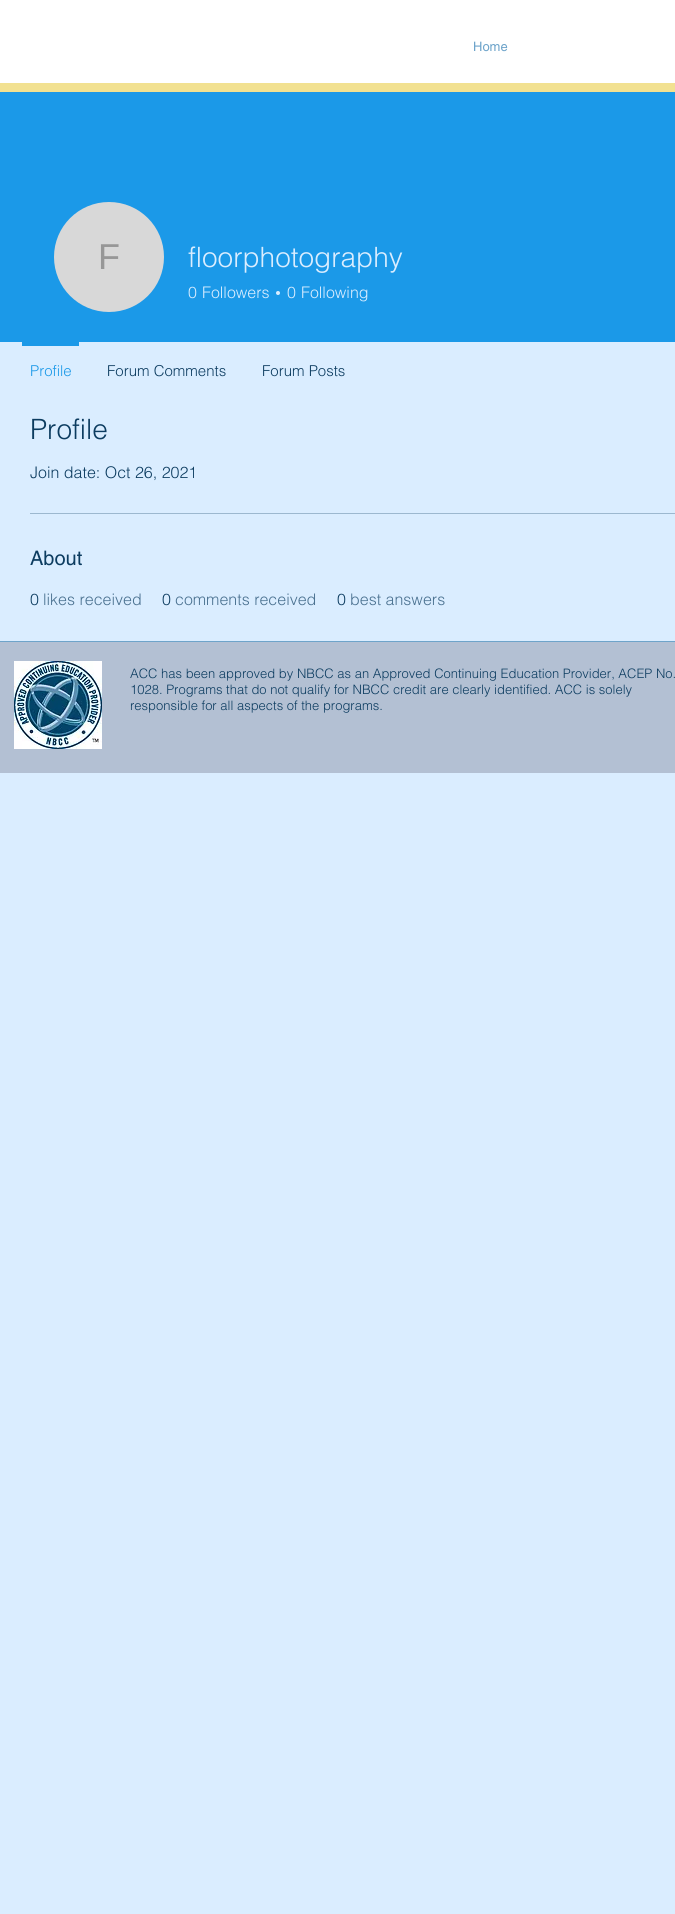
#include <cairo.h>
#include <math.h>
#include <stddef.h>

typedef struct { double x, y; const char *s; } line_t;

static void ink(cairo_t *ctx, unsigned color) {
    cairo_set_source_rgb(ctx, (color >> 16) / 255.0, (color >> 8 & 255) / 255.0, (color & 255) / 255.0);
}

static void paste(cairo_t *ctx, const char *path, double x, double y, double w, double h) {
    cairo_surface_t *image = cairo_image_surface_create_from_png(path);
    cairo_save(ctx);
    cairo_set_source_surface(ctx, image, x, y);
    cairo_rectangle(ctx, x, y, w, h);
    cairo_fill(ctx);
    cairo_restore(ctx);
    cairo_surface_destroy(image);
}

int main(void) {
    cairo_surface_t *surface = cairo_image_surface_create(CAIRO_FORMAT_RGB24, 675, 1914);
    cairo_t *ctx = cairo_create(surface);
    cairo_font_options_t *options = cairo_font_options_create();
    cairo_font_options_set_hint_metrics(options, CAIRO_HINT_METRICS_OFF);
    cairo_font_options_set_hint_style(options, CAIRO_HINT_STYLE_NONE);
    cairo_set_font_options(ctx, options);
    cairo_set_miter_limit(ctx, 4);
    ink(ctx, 0xDAEDFF);
    cairo_paint(ctx);
    ink(ctx, 0xFFFFFF);
    cairo_rectangle(ctx, 0, 0, 675, 83);
    cairo_fill(ctx);
    cairo_select_font_face(ctx, "helvetica", CAIRO_FONT_SLANT_NORMAL, CAIRO_FONT_WEIGHT_NORMAL);
    cairo_set_font_size(ctx, 13);
    ink(ctx, 0x6EA4CA);
    cairo_move_to(ctx, 473, 51);
    cairo_show_text(ctx, "Home");
    ink(ctx, 0xF2E191);
    cairo_rectangle(ctx, 0, 83, 675, 9);
    cairo_fill(ctx);
    ink(ctx, 0x1B99E8);
    cairo_rectangle(ctx, 0, 92, 675, 250);
    cairo_fill(ctx);
    ink(ctx, 0xD8D8D8);
    cairo_arc(ctx, 109, 257, 55, 0, 2 * M_PI);
    cairo_fill(ctx);
    cairo_select_font_face(ctx, "Liberation Sans", CAIRO_FONT_SLANT_NORMAL, CAIRO_FONT_WEIGHT_NORMAL);
    cairo_set_font_size(ctx, 36);
    ink(ctx, 0x979797);
    cairo_move_to(ctx, 98, 269);
    cairo_show_text(ctx, "F");
    cairo_select_font_face(ctx, "helvetica Light", CAIRO_FONT_SLANT_NORMAL, CAIRO_FONT_WEIGHT_NORMAL);
    cairo_set_font_size(ctx, 28);
    ink(ctx, 0xDAEDFF);
    cairo_move_to(ctx, 188, 267);
    cairo_show_text(ctx, "floorphotography");
    cairo_set_font_size(ctx, 16);
    cairo_move_to(ctx, 188, 298);
    cairo_show_text(ctx, "0");
    cairo_move_to(ctx, 202, 298);
    cairo_show_text(ctx, "Followers");
    cairo_new_path(ctx);
    cairo_arc(ctx, 278, 293, 2, 0, 2 * M_PI);
    cairo_fill(ctx);
    cairo_move_to(ctx, 287, 298);
    cairo_show_text(ctx, "0");
    cairo_move_to(ctx, 301, 298);
    cairo_show_text(ctx, "Following");
    ink(ctx, 0x1B99E8);
    cairo_rectangle(ctx, 22, 342, 57, 4);
    cairo_fill(ctx);
    cairo_set_font_size(ctx, 15);
    cairo_move_to(ctx, 30, 376);
    cairo_show_text(ctx, "Profile");
    ink(ctx, 0x0C3C60);
    cairo_move_to(ctx, 107, 376);
    cairo_show_text(ctx, "Forum Comments");
    cairo_move_to(ctx, 262, 376);
    cairo_show_text(ctx, "Forum Posts");
    cairo_set_font_size(ctx, 28);
    cairo_move_to(ctx, 30, 439);
    cairo_show_text(ctx, "Profile");
    cairo_set_font_size(ctx, 16);
    cairo_move_to(ctx, 30, 478);
    cairo_show_text(ctx, "Join date: Oct 26, 2021");
    ink(ctx, 0x9CB8CF);
    cairo_rectangle(ctx, 30, 513, 645, 1);
    cairo_fill(ctx);
    cairo_select_font_face(ctx, "helvetica", CAIRO_FONT_SLANT_NORMAL, CAIRO_FONT_WEIGHT_NORMAL);
    cairo_set_font_size(ctx, 20);
    ink(ctx, 0x0C3C60);
    cairo_move_to(ctx, 30, 565);
    cairo_show_text(ctx, "About");
    cairo_select_font_face(ctx, "helvetica Light", CAIRO_FONT_SLANT_NORMAL, CAIRO_FONT_WEIGHT_NORMAL);
    cairo_set_font_size(ctx, 16);
    cairo_move_to(ctx, 30, 605);
    cairo_show_text(ctx, "0");
    ink(ctx, 0x4A7190);
    cairo_move_to(ctx, 43, 605);
    cairo_show_text(ctx, "likes received");
    ink(ctx, 0x0C3C60);
    cairo_move_to(ctx, 162, 605);
    cairo_show_text(ctx, "0");
    ink(ctx, 0x4A7190);
    cairo_move_to(ctx, 175, 605);
    cairo_show_text(ctx, "comments received");
    ink(ctx, 0x0C3C60);
    cairo_move_to(ctx, 337, 605);
    cairo_show_text(ctx, "0");
    ink(ctx, 0x4A7190);
    cairo_move_to(ctx, 350, 605);
    cairo_show_text(ctx, "best answers");
    ink(ctx, 0xB3C0D3);
    cairo_rectangle(ctx, 0, 642, 675, 131);
    cairo_fill(ctx);
    ink(ctx, 0x6EA4CA);
    cairo_rectangle(ctx, 0, 641, 675, 1);
    cairo_fill(ctx);
    paste(ctx, "media/1.png", 14, 661, 88, 88);
    cairo_set_font_size(ctx, 13);
    ink(ctx, 0x0C3C60);
    {
        static const line_t items[] = {
            {130, 678, "ACC has been approved by NBCC as an Approved Continuing Education Provider, ACEP No."},
            {130, 694, "1028. Programs that do not qualify for NBCC credit are clearly identified. ACC is solely"},
            {130, 710, "responsible for all aspects of the programs."},
        };
        for (size_t i = 0; i < sizeof items / sizeof *items; i++) {
            cairo_move_to(ctx, items[i].x, items[i].y);
            cairo_show_text(ctx, items[i].s);
        }
    }
    cairo_surface_write_to_png(surface, "image.png");
    cairo_font_options_destroy(options);
    cairo_destroy(ctx);
    cairo_surface_destroy(surface);
    return 0;
}
